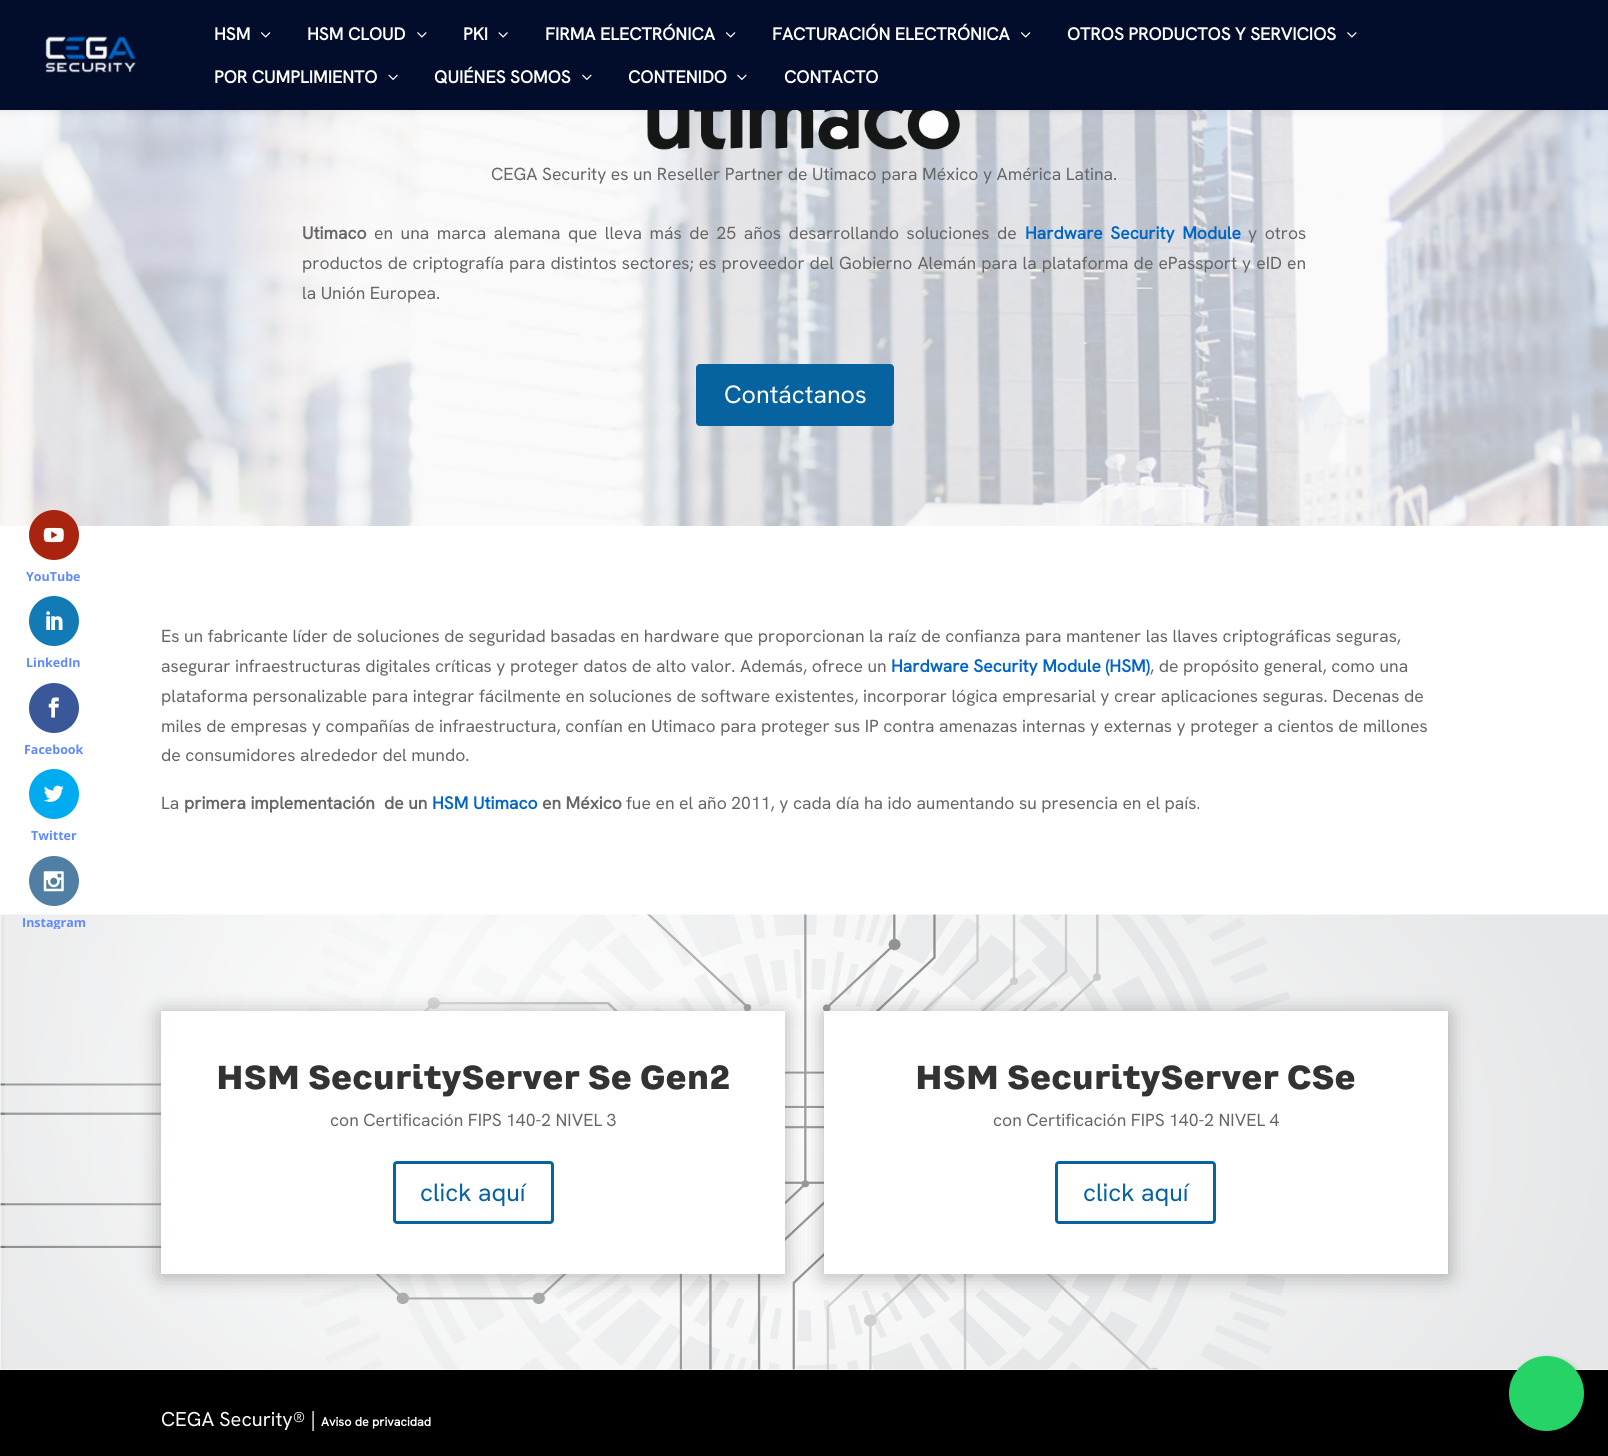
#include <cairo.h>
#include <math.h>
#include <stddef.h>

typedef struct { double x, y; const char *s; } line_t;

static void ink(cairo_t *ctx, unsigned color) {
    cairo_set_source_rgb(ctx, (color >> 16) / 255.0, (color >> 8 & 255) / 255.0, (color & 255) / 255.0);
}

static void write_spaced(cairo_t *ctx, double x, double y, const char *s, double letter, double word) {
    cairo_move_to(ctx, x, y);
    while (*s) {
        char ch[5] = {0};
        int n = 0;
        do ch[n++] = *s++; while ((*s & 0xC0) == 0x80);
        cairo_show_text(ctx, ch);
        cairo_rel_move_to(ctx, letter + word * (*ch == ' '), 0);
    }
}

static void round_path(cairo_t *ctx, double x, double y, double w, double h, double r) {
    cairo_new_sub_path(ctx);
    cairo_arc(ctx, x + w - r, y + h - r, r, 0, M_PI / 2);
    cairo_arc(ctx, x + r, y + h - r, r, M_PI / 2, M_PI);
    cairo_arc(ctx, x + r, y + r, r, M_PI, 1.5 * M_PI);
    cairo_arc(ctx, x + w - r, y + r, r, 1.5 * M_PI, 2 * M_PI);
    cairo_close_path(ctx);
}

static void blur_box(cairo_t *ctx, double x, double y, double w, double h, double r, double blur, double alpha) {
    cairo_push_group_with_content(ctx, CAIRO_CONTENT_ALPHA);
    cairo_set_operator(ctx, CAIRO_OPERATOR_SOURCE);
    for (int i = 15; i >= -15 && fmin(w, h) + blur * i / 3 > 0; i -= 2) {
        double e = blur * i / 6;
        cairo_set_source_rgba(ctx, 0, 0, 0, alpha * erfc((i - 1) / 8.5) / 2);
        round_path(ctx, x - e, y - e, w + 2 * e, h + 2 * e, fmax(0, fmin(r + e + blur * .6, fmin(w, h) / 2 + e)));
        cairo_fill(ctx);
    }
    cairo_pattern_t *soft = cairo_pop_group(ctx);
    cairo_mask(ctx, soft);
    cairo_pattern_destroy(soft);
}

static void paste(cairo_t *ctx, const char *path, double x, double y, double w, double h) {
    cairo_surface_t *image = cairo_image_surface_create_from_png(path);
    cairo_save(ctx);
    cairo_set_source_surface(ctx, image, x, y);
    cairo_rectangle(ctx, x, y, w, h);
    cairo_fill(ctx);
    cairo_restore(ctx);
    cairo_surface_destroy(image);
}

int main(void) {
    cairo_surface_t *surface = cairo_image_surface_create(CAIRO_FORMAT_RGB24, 1608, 1456);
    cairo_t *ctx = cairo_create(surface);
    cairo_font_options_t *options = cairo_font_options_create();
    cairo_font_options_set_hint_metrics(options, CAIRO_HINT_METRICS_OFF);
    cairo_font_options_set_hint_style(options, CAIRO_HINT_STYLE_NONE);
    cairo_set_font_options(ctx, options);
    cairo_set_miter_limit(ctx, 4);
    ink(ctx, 0xFFFFFF);
    cairo_paint(ctx);
    paste(ctx, "media/7.png", 0, 110, 1608, 416);
    paste(ctx, "media/8.png", 647, 110, 313, 40);
    ink(ctx, 0x000000);
    blur_box(ctx, 0, 0, 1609, 110, 0, 4.5, 0.1);
    ink(ctx, 0x020D2B);
    cairo_rectangle(ctx, 0, 0, 1608, 110);
    cairo_fill(ctx);
    paste(ctx, "media/1.png", 45, 36, 91, 37);
    cairo_select_font_face(ctx, "Hanken Grotesk", CAIRO_FONT_SLANT_NORMAL, CAIRO_FONT_WEIGHT_BOLD);
    cairo_set_font_size(ctx, 17.5);
    ink(ctx, 0xFFFFFF);
    cairo_move_to(ctx, 214, 40);
    cairo_show_text(ctx, "HSM");
    paste(ctx, "media/2.png", 261, 32, 10, 6);
    cairo_move_to(ctx, 307, 40);
    cairo_show_text(ctx, "HSM CLOUD");
    paste(ctx, "media/3.png", 417, 32, 10, 6);
    cairo_move_to(ctx, 463, 40);
    cairo_show_text(ctx, "PKI");
    paste(ctx, "media/4.png", 498, 32, 10, 6);
    cairo_move_to(ctx, 545, 40);
    cairo_show_text(ctx, "FIRMA ELECTRÓNICA");
    paste(ctx, "media/2.png", 726, 32, 10, 6);
    cairo_move_to(ctx, 772, 40);
    cairo_show_text(ctx, "FACTURACIÓN ELECTRÓNICA");
    paste(ctx, "media/2.png", 1021, 32, 10, 6);
    cairo_move_to(ctx, 1067, 40);
    cairo_show_text(ctx, "OTROS PRODUCTOS Y SERVICIOS");
    paste(ctx, "media/3.png", 1347, 32, 10, 6);
    cairo_move_to(ctx, 214, 83);
    cairo_show_text(ctx, "POR CUMPLIMIENTO");
    paste(ctx, "media/5.png", 388, 74, 10, 6);
    cairo_move_to(ctx, 434, 83);
    cairo_show_text(ctx, "QUIÉNES SOMOS");
    paste(ctx, "media/6.png", 582, 74, 10, 6);
    cairo_move_to(ctx, 628, 83);
    cairo_show_text(ctx, "CONTENIDO");
    paste(ctx, "media/6.png", 737, 74, 10, 6);
    cairo_move_to(ctx, 784, 83);
    cairo_show_text(ctx, "CONTACTO");
    cairo_select_font_face(ctx, "Hanken Grotesk", CAIRO_FONT_SLANT_NORMAL, CAIRO_FONT_WEIGHT_NORMAL);
    ink(ctx, 0x666666);
    cairo_move_to(ctx, 491, 180);
    cairo_show_text(ctx, "CEGA Security es un Reseller Partner de Utimaco para México y América Latina.");
    cairo_select_font_face(ctx, "Hanken Grotesk", CAIRO_FONT_SLANT_NORMAL, CAIRO_FONT_WEIGHT_BOLD);
    cairo_move_to(ctx, 302, 239);
    cairo_show_text(ctx, "Utimaco");
    cairo_select_font_face(ctx, "Hanken Grotesk", CAIRO_FONT_SLANT_NORMAL, CAIRO_FONT_WEIGHT_NORMAL);
    write_spaced(ctx, 374, 239, "en una marca alemana que lleva más de 25 años desarrollando soluciones de", 0, 3);
    cairo_select_font_face(ctx, "Hanken Grotesk", CAIRO_FONT_SLANT_NORMAL, CAIRO_FONT_WEIGHT_BOLD);
    ink(ctx, 0x0065C5);
    write_spaced(ctx, 1025, 239, "Hardware Security Module", 0, 3);
    cairo_select_font_face(ctx, "Hanken Grotesk", CAIRO_FONT_SLANT_NORMAL, CAIRO_FONT_WEIGHT_NORMAL);
    ink(ctx, 0x666666);
    write_spaced(ctx, 1248, 239, "y otros", 0, 3);
    write_spaced(ctx, 302, 269, "productos de criptografía para distintos sectores; es proveedor del Gobierno Alemán para la plataforma de ePassport y eID en", 0, 0.5);
    cairo_move_to(ctx, 302, 299);
    cairo_show_text(ctx, "la Unión Europea.");
    ink(ctx, 0x06639F);
    round_path(ctx, 696, 364, 198, 62, 4);
    cairo_fill(ctx);
    cairo_set_font_size(ctx, 25);
    ink(ctx, 0xFFFFFF);
    cairo_move_to(ctx, 724, 403);
    cairo_show_text(ctx, "Contáctanos");
    ink(ctx, 0xA8240F);
    cairo_new_path(ctx);
    cairo_arc(ctx, 54, 535, 25, 0, 2 * M_PI);
    cairo_fill(ctx);
    paste(ctx, "media/9.png", 43, 527, 21, 16);
    cairo_select_font_face(ctx, "Open Sans", CAIRO_FONT_SLANT_NORMAL, CAIRO_FONT_WEIGHT_BOLD);
    cairo_set_font_size(ctx, 12.5);
    ink(ctx, 0x6088FF);
    cairo_move_to(ctx, 26, 581);
    cairo_show_text(ctx, "YouTube");
    ink(ctx, 0x127BB6);
    cairo_new_path(ctx);
    cairo_arc(ctx, 54, 621, 25, 0, 2 * M_PI);
    cairo_fill(ctx);
    paste(ctx, "media/10.png", 46, 611, 17, 19);
    ink(ctx, 0x6088FF);
    cairo_move_to(ctx, 26, 667);
    cairo_show_text(ctx, "LinkedIn");
    ink(ctx, 0x3A579A);
    cairo_new_path(ctx);
    cairo_arc(ctx, 54, 708, 25, 0, 2 * M_PI);
    cairo_fill(ctx);
    paste(ctx, "media/11.png", 48, 697, 11, 21);
    ink(ctx, 0x6088FF);
    cairo_move_to(ctx, 24, 754);
    cairo_show_text(ctx, "Facebook");
    ink(ctx, 0x00ABF0);
    cairo_new_path(ctx);
    cairo_arc(ctx, 54, 794, 25, 0, 2 * M_PI);
    cairo_fill(ctx);
    paste(ctx, "media/12.png", 44, 785, 20, 17);
    ink(ctx, 0x6088FF);
    cairo_move_to(ctx, 31, 840);
    cairo_show_text(ctx, "Twitter");
    ink(ctx, 0x517FA4);
    cairo_new_path(ctx);
    cairo_arc(ctx, 54, 881, 25, 0, 2 * M_PI);
    cairo_fill(ctx);
    paste(ctx, "media/13.png", 43, 871, 21, 21);
    paste(ctx, "media/14.png", 0, 914, 1608, 456);
    cairo_save(ctx);
    cairo_rectangle(ctx, 16, 856, 75, 73);
    cairo_clip(ctx);
    ink(ctx, 0x6088FF);
    cairo_move_to(ctx, 22, 927);
    cairo_show_text(ctx, "Instagram");
    cairo_restore(ctx);
    cairo_select_font_face(ctx, "Hanken Grotesk", CAIRO_FONT_SLANT_NORMAL, CAIRO_FONT_WEIGHT_NORMAL);
    cairo_set_font_size(ctx, 17.5);
    ink(ctx, 0x666666);
    cairo_move_to(ctx, 161, 642);
    cairo_show_text(ctx, "Es un fabricante líder de soluciones de seguridad basadas en hardware que proporcionan la raíz de confianza para mantener las llaves criptográficas seguras,");
    cairo_move_to(ctx, 161, 672);
    cairo_show_text(ctx, "asegurar infraestructuras digitales críticas y proteger datos de alto valor. Además, ofrece un");
    cairo_select_font_face(ctx, "Hanken Grotesk", CAIRO_FONT_SLANT_NORMAL, CAIRO_FONT_WEIGHT_BOLD);
    ink(ctx, 0x0065C5);
    cairo_move_to(ctx, 891, 672);
    cairo_show_text(ctx, "Hardware Security Module (HSM)");
    cairo_select_font_face(ctx, "Hanken Grotesk", CAIRO_FONT_SLANT_NORMAL, CAIRO_FONT_WEIGHT_NORMAL);
    ink(ctx, 0x666666);
    {
        static const line_t items[] = {
            {1150, 672, ", de propósito general, como una"},
            {161, 702, "plataforma personalizable para integrar fácilmente en soluciones de software existentes, incorporar lógica empresarial y crear aplicaciones seguras. Decenas de"},
            {161, 732, "miles de empresas y compañías de infraestructura, confían en Utimaco para proteger sus IP contra amenazas internas y externas y proteger a cientos de millones"},
            {161, 761, "de consumidores alrededor del mundo."},
            {161, 809, "La"},
        };
        for (size_t i = 0; i < sizeof items / sizeof *items; i++) {
            cairo_move_to(ctx, items[i].x, items[i].y);
            cairo_show_text(ctx, items[i].s);
        }
    }
    cairo_select_font_face(ctx, "Hanken Grotesk", CAIRO_FONT_SLANT_NORMAL, CAIRO_FONT_WEIGHT_BOLD);
    cairo_move_to(ctx, 184, 809);
    cairo_show_text(ctx, "primera implementación  de un");
    ink(ctx, 0x0065C5);
    cairo_move_to(ctx, 432, 809);
    cairo_show_text(ctx, "HSM Utimaco");
    ink(ctx, 0x666666);
    cairo_move_to(ctx, 542, 809);
    cairo_show_text(ctx, "en México");
    cairo_select_font_face(ctx, "Hanken Grotesk", CAIRO_FONT_SLANT_NORMAL, CAIRO_FONT_WEIGHT_NORMAL);
    cairo_move_to(ctx, 626, 809);
    cairo_show_text(ctx, "fue en el año 2011, y cada día ha ido aumentando su presencia en el país.");
    ink(ctx, 0x000000);
    blur_box(ctx, 161, 1014, 624, 262, 0, 11, 0.3);
    ink(ctx, 0xFFFFFF);
    cairo_rectangle(ctx, 161, 1011, 624, 263);
    cairo_fill(ctx);
    cairo_select_font_face(ctx, "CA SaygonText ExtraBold", CAIRO_FONT_SLANT_NORMAL, CAIRO_FONT_WEIGHT_NORMAL);
    cairo_set_font_size(ctx, 32.5);
    ink(ctx, 0x333333);
    cairo_move_to(ctx, 216, 1089);
    cairo_show_text(ctx, "HSM SecurityServer Se Gen2");
    cairo_select_font_face(ctx, "Hanken Grotesk", CAIRO_FONT_SLANT_NORMAL, CAIRO_FONT_WEIGHT_NORMAL);
    cairo_set_font_size(ctx, 17.5);
    ink(ctx, 0x666666);
    cairo_move_to(ctx, 330, 1126);
    cairo_show_text(ctx, "con Certificación FIPS 140-2 NIVEL 3");
    round_path(ctx, 394.5, 1162.5, 158, 60, 2.5);
    ink(ctx, 0x06639F);
    cairo_set_line_width(ctx, 3);
    cairo_stroke(ctx);
    cairo_set_font_size(ctx, 25);
    cairo_move_to(ctx, 420, 1201);
    cairo_show_text(ctx, "click aquí");
    ink(ctx, 0x000000);
    blur_box(ctx, 824, 1014, 624, 262, 0, 11, 0.3);
    ink(ctx, 0xFFFFFF);
    cairo_rectangle(ctx, 824, 1011, 624, 263);
    cairo_fill(ctx);
    cairo_select_font_face(ctx, "CA SaygonText ExtraBold", CAIRO_FONT_SLANT_NORMAL, CAIRO_FONT_WEIGHT_NORMAL);
    cairo_set_font_size(ctx, 32.5);
    ink(ctx, 0x333333);
    cairo_move_to(ctx, 915, 1089);
    cairo_show_text(ctx, "HSM SecurityServer CSe");
    cairo_select_font_face(ctx, "Hanken Grotesk", CAIRO_FONT_SLANT_NORMAL, CAIRO_FONT_WEIGHT_NORMAL);
    cairo_set_font_size(ctx, 17.5);
    ink(ctx, 0x666666);
    cairo_move_to(ctx, 993, 1126);
    cairo_show_text(ctx, "con Certificación FIPS 140-2 NIVEL 4");
    round_path(ctx, 1056.5, 1162.5, 158, 60, 2.5);
    ink(ctx, 0x06639F);
    cairo_stroke(ctx);
    cairo_set_font_size(ctx, 25);
    cairo_move_to(ctx, 1083, 1201);
    cairo_show_text(ctx, "click aquí");
    ink(ctx, 0x000000);
    cairo_rectangle(ctx, 0, 1370, 1608, 86);
    cairo_fill(ctx);
    cairo_set_font_size(ctx, 20);
    ink(ctx, 0xFFFFFF);
    cairo_move_to(ctx, 161, 1426);
    cairo_show_text(ctx, "CEGA Security® |");
    cairo_select_font_face(ctx, "Hanken Grotesk", CAIRO_FONT_SLANT_NORMAL, CAIRO_FONT_WEIGHT_BOLD);
    cairo_set_font_size(ctx, 12.5);
    cairo_move_to(ctx, 321, 1426);
    cairo_show_text(ctx, "Aviso de privacidad");
    ink(ctx, 0x000000);
    blur_box(ctx, 1511, 1359, 75, 75, 37.5, 3, 0.3);
    ink(ctx, 0x25D366);
    cairo_arc(ctx, 1546.5, 1393.5, 37.5, 0, 2 * M_PI);
    cairo_fill(ctx);
    cairo_surface_write_to_png(surface, "image.png");
    cairo_font_options_destroy(options);
    cairo_destroy(ctx);
    cairo_surface_destroy(surface);
    return 0;
}
